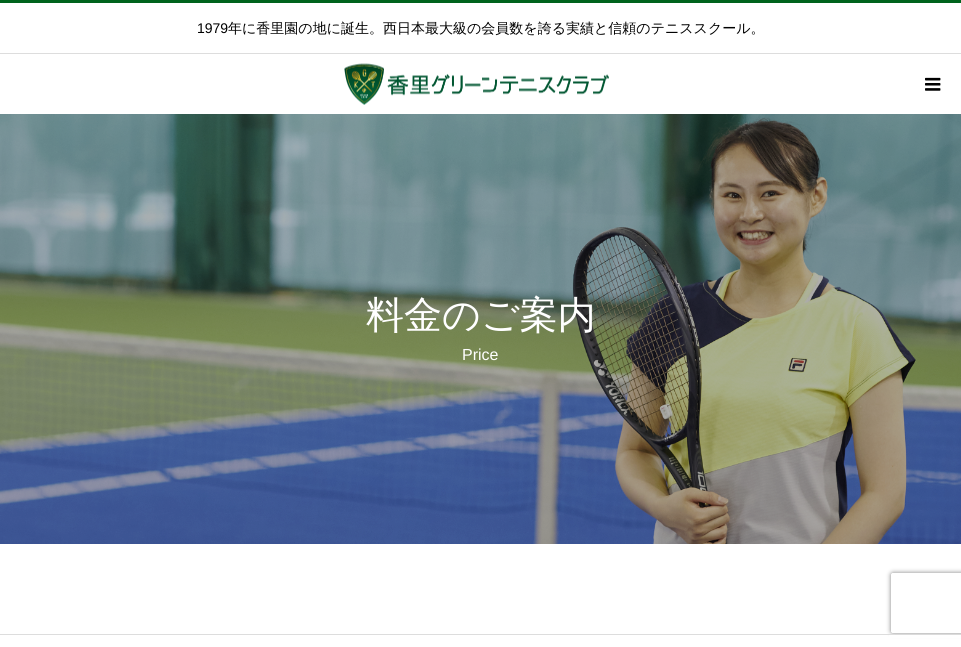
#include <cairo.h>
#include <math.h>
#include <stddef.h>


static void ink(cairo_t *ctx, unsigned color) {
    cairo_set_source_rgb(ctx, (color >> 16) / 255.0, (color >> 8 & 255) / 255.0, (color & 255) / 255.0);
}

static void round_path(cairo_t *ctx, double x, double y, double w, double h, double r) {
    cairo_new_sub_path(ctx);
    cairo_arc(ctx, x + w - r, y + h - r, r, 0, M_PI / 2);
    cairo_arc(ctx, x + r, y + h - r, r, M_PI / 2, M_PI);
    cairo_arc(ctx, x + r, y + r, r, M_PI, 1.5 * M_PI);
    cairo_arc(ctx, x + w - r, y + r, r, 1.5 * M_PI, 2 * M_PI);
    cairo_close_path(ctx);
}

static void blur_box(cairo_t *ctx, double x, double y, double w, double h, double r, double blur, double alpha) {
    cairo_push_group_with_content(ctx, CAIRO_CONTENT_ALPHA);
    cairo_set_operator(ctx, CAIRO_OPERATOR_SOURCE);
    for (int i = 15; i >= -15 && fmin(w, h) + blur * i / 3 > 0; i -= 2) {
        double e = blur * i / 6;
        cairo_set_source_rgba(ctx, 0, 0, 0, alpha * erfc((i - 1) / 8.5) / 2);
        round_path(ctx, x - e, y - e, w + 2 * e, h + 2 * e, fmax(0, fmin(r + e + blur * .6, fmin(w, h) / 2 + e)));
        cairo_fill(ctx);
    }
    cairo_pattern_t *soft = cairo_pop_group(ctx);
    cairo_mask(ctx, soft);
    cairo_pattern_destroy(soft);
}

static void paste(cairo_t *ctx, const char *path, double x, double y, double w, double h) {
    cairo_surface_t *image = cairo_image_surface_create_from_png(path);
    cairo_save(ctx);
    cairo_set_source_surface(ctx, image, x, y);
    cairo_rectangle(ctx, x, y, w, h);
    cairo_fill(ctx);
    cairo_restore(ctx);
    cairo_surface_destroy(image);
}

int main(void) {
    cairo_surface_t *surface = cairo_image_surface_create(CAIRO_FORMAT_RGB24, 961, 647);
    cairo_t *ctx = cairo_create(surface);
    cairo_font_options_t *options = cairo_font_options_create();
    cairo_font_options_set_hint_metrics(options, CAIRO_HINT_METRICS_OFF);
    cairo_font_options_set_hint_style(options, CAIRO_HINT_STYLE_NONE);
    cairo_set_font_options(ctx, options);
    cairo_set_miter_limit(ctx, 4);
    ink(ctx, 0xFFFFFF);
    cairo_paint(ctx);
    ink(ctx, 0x00631D);
    cairo_rectangle(ctx, 0, 0, 961, 3);
    cairo_fill(ctx);
    ink(ctx, 0xDDDDDD);
    cairo_rectangle(ctx, 0, 53, 961, 1);
    cairo_fill(ctx);
    cairo_select_font_face(ctx, "Liberation Sans", CAIRO_FONT_SLANT_NORMAL, CAIRO_FONT_WEIGHT_NORMAL);
    cairo_set_font_size(ctx, 14);
    ink(ctx, 0x000000);
    cairo_move_to(ctx, 197, 33);
    cairo_show_text(ctx, "1979");
    cairo_select_font_face(ctx, "WenQuanYi Zen Hei Medium", CAIRO_FONT_SLANT_NORMAL, CAIRO_FONT_WEIGHT_NORMAL);
    cairo_move_to(ctx, 228, 33);
    cairo_show_text(ctx, "年に香里園の地に誕生。西日本最大級の会員数を誇る実績と信頼のテニススクール。");
    paste(ctx, "media/1.png", 344, 63, 265, 42);
    paste(ctx, "media/2.png", 925, 77, 16, 14);
    paste(ctx, "media/3.png", 0, 114, 961, 430);
    cairo_set_font_size(ctx, 38);
    ink(ctx, 0xFFFFFF);
    cairo_move_to(ctx, 366, 328);
    cairo_show_text(ctx, "料金のご案内");
    cairo_select_font_face(ctx, "Liberation Sans", CAIRO_FONT_SLANT_NORMAL, CAIRO_FONT_WEIGHT_NORMAL);
    cairo_set_font_size(ctx, 16);
    cairo_move_to(ctx, 462, 360);
    cairo_show_text(ctx, "Price");
    cairo_save(ctx);
    cairo_set_fill_rule(ctx, CAIRO_FILL_RULE_EVEN_ODD);
    cairo_new_path(ctx);
    cairo_move_to(ctx, 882, 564);
    cairo_line_to(ctx, 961, 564);
    cairo_line_to(ctx, 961, 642);
    cairo_line_to(ctx, 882, 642);
    cairo_close_path(ctx);
    cairo_move_to(ctx, 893, 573);
    cairo_line_to(ctx, 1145, 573);
    cairo_curve_to(ctx, 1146, 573, 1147, 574, 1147, 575);
    cairo_line_to(ctx, 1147, 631);
    cairo_curve_to(ctx, 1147, 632, 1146, 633, 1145, 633);
    cairo_line_to(ctx, 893, 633);
    cairo_curve_to(ctx, 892, 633, 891, 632, 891, 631);
    cairo_line_to(ctx, 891, 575);
    cairo_curve_to(ctx, 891, 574, 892, 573, 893, 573);
    cairo_close_path(ctx);
    cairo_clip(ctx);
    ink(ctx, 0x808080);
    blur_box(ctx, 891, 573, 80, 60, 2, 2.5, 1);
    cairo_restore(ctx);
    cairo_rectangle(ctx, 889, 635, 72, 3);
    cairo_fill(ctx);
    ink(ctx, 0xDDDDDD);
    cairo_rectangle(ctx, 0, 634, 895, 1);
    cairo_fill(ctx);
    cairo_surface_write_to_png(surface, "image.png");
    cairo_font_options_destroy(options);
    cairo_destroy(ctx);
    cairo_surface_destroy(surface);
    return 0;
}
